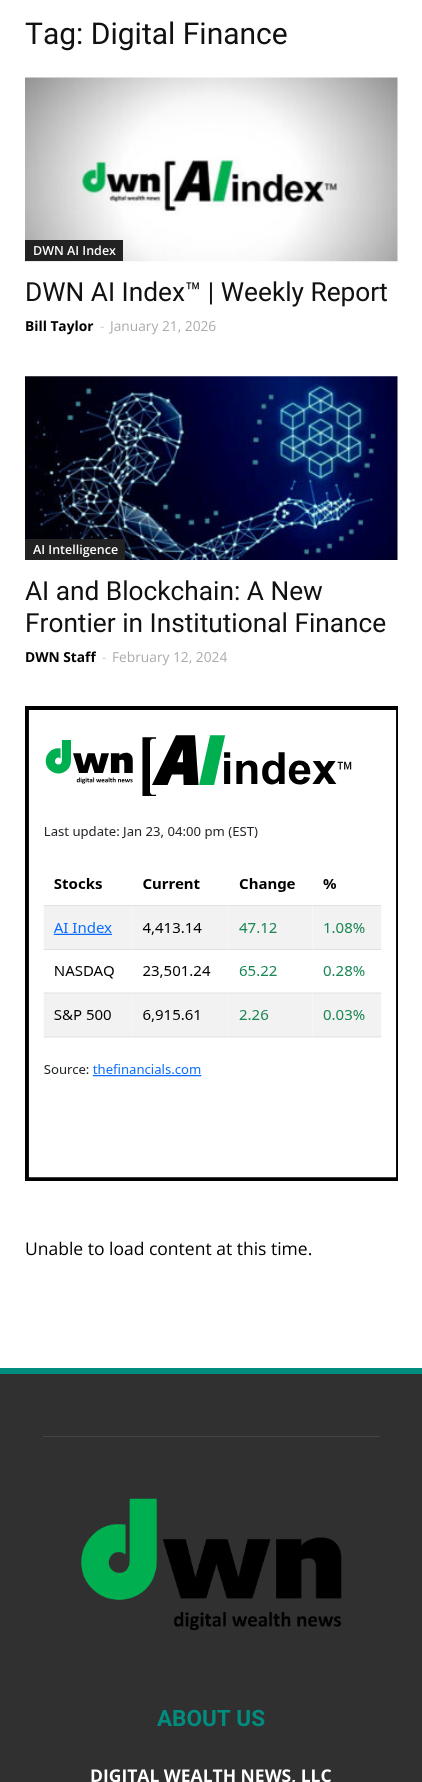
#include <cairo.h>
#include <math.h>
#include <stddef.h>

typedef struct { double x, y, w, h; unsigned color; } box_t;

static void ink(cairo_t *ctx, unsigned color) {
    cairo_set_source_rgb(ctx, (color >> 16) / 255.0, (color >> 8 & 255) / 255.0, (color & 255) / 255.0);
}

static void paste(cairo_t *ctx, const char *path, double x, double y, double w, double h) {
    cairo_surface_t *image = cairo_image_surface_create_from_png(path);
    cairo_save(ctx);
    cairo_set_source_surface(ctx, image, x, y);
    cairo_rectangle(ctx, x, y, w, h);
    cairo_fill(ctx);
    cairo_restore(ctx);
    cairo_surface_destroy(image);
}

int main(void) {
    cairo_surface_t *surface = cairo_image_surface_create(CAIRO_FORMAT_RGB24, 422, 1782);
    cairo_t *ctx = cairo_create(surface);
    cairo_font_options_t *options = cairo_font_options_create();
    cairo_font_options_set_hint_metrics(options, CAIRO_HINT_METRICS_OFF);
    cairo_font_options_set_hint_style(options, CAIRO_HINT_STYLE_NONE);
    cairo_set_font_options(ctx, options);
    cairo_set_miter_limit(ctx, 4);
    ink(ctx, 0xFFFFFF);
    cairo_paint(ctx);
    cairo_select_font_face(ctx, "Roboto", CAIRO_FONT_SLANT_NORMAL, CAIRO_FONT_WEIGHT_NORMAL);
    cairo_set_font_size(ctx, 30);
    ink(ctx, 0x111111);
    cairo_move_to(ctx, 25, 44);
    cairo_show_text(ctx, "Tag: Digital Finance");
    paste(ctx, "media/1.png", 25, 77, 373, 185);
    ink(ctx, 0x222222);
    cairo_rectangle(ctx, 25, 240, 98, 21);
    cairo_fill(ctx);
    cairo_select_font_face(ctx, "Open Sans SemiBold", CAIRO_FONT_SLANT_NORMAL, CAIRO_FONT_WEIGHT_NORMAL);
    cairo_set_font_size(ctx, 12.5);
    ink(ctx, 0xFFFFFF);
    cairo_move_to(ctx, 33, 255);
    cairo_show_text(ctx, "DWN AI Index");
    cairo_select_font_face(ctx, "Roboto", CAIRO_FONT_SLANT_NORMAL, CAIRO_FONT_WEIGHT_NORMAL);
    cairo_set_font_size(ctx, 26.25);
    ink(ctx, 0x111111);
    cairo_move_to(ctx, 25, 301);
    cairo_show_text(ctx, "DWN AI Index™ | Weekly Report");
    cairo_select_font_face(ctx, "Open Sans", CAIRO_FONT_SLANT_NORMAL, CAIRO_FONT_WEIGHT_BOLD);
    cairo_set_font_size(ctx, 13.75);
    ink(ctx, 0x000000);
    cairo_move_to(ctx, 25, 331);
    cairo_show_text(ctx, "Bill Taylor");
    cairo_select_font_face(ctx, "Open Sans", CAIRO_FONT_SLANT_NORMAL, CAIRO_FONT_WEIGHT_NORMAL);
    ink(ctx, 0xCCCCCC);
    cairo_move_to(ctx, 100, 331);
    cairo_show_text(ctx, "-");
    ink(ctx, 0xAAAAAA);
    cairo_move_to(ctx, 110, 331);
    cairo_show_text(ctx, "January 21, 2026");
    paste(ctx, "media/2.png", 25, 376, 373, 184);
    ink(ctx, 0x222222);
    cairo_rectangle(ctx, 25, 539, 100, 21);
    cairo_fill(ctx);
    cairo_select_font_face(ctx, "Open Sans SemiBold", CAIRO_FONT_SLANT_NORMAL, CAIRO_FONT_WEIGHT_NORMAL);
    cairo_set_font_size(ctx, 12.5);
    ink(ctx, 0xFFFFFF);
    cairo_move_to(ctx, 33, 554);
    cairo_show_text(ctx, "AI Intelligence");
    cairo_select_font_face(ctx, "Roboto", CAIRO_FONT_SLANT_NORMAL, CAIRO_FONT_WEIGHT_NORMAL);
    cairo_set_font_size(ctx, 26.25);
    ink(ctx, 0x111111);
    cairo_move_to(ctx, 25, 600);
    cairo_show_text(ctx, "AI and Blockchain: A New");
    cairo_move_to(ctx, 25, 632);
    cairo_show_text(ctx, "Frontier in Institutional Finance");
    cairo_select_font_face(ctx, "Open Sans", CAIRO_FONT_SLANT_NORMAL, CAIRO_FONT_WEIGHT_BOLD);
    cairo_set_font_size(ctx, 13.75);
    ink(ctx, 0x000000);
    cairo_move_to(ctx, 25, 662);
    cairo_show_text(ctx, "DWN Staff");
    cairo_select_font_face(ctx, "Open Sans", CAIRO_FONT_SLANT_NORMAL, CAIRO_FONT_WEIGHT_NORMAL);
    ink(ctx, 0xCCCCCC);
    cairo_move_to(ctx, 102, 662);
    cairo_show_text(ctx, "-");
    ink(ctx, 0xAAAAAA);
    cairo_move_to(ctx, 112, 662);
    cairo_show_text(ctx, "February 12, 2024");
    cairo_save(ctx);
    cairo_rectangle(ctx, 25, 706, 373, 482);
    cairo_clip(ctx);
    cairo_rectangle(ctx, 27, 708, 371, 471);
    ink(ctx, 0x000000);
    cairo_set_line_width(ctx, 4);
    cairo_stroke(ctx);
    cairo_restore(ctx);
    paste(ctx, "media/3.png", 28, 710, 369, 468);
    cairo_set_font_size(ctx, 17.5);
    ink(ctx, 0x000000);
    cairo_move_to(ctx, 25, 1255);
    cairo_show_text(ctx, "Unable to load content at this time.");
    {
        static const box_t items[] = {
            {0, 1374, 422, 408, 0x303030},
            {0, 1368, 422, 6, 0x008D7F},
            {43, 1436, 337, 1, 0x454545},
        };
        for (size_t i = 0; i < sizeof items / sizeof *items; i++) {
            ink(ctx, items[i].color);
            cairo_rectangle(ctx, items[i].x, items[i].y, items[i].w, items[i].h);
            cairo_fill(ctx);
        }
    }
    paste(ctx, "media/4.png", 81, 1498, 261, 132);
    cairo_select_font_face(ctx, "Roboto", CAIRO_FONT_SLANT_NORMAL, CAIRO_FONT_WEIGHT_BOLD);
    cairo_set_font_size(ctx, 22.5);
    ink(ctx, 0x008D7F);
    cairo_move_to(ctx, 157, 1726);
    cairo_show_text(ctx, "ABOUT US");
    cairo_select_font_face(ctx, "Open Sans", CAIRO_FONT_SLANT_NORMAL, CAIRO_FONT_WEIGHT_BOLD);
    cairo_set_font_size(ctx, 17.5);
    ink(ctx, 0xFFFFFF);
    cairo_move_to(ctx, 90, 1782);
    cairo_show_text(ctx, "DIGITAL WEALTH NEWS, LLC");
    cairo_surface_write_to_png(surface, "image.png");
    cairo_font_options_destroy(options);
    cairo_destroy(ctx);
    cairo_surface_destroy(surface);
    return 0;
}
